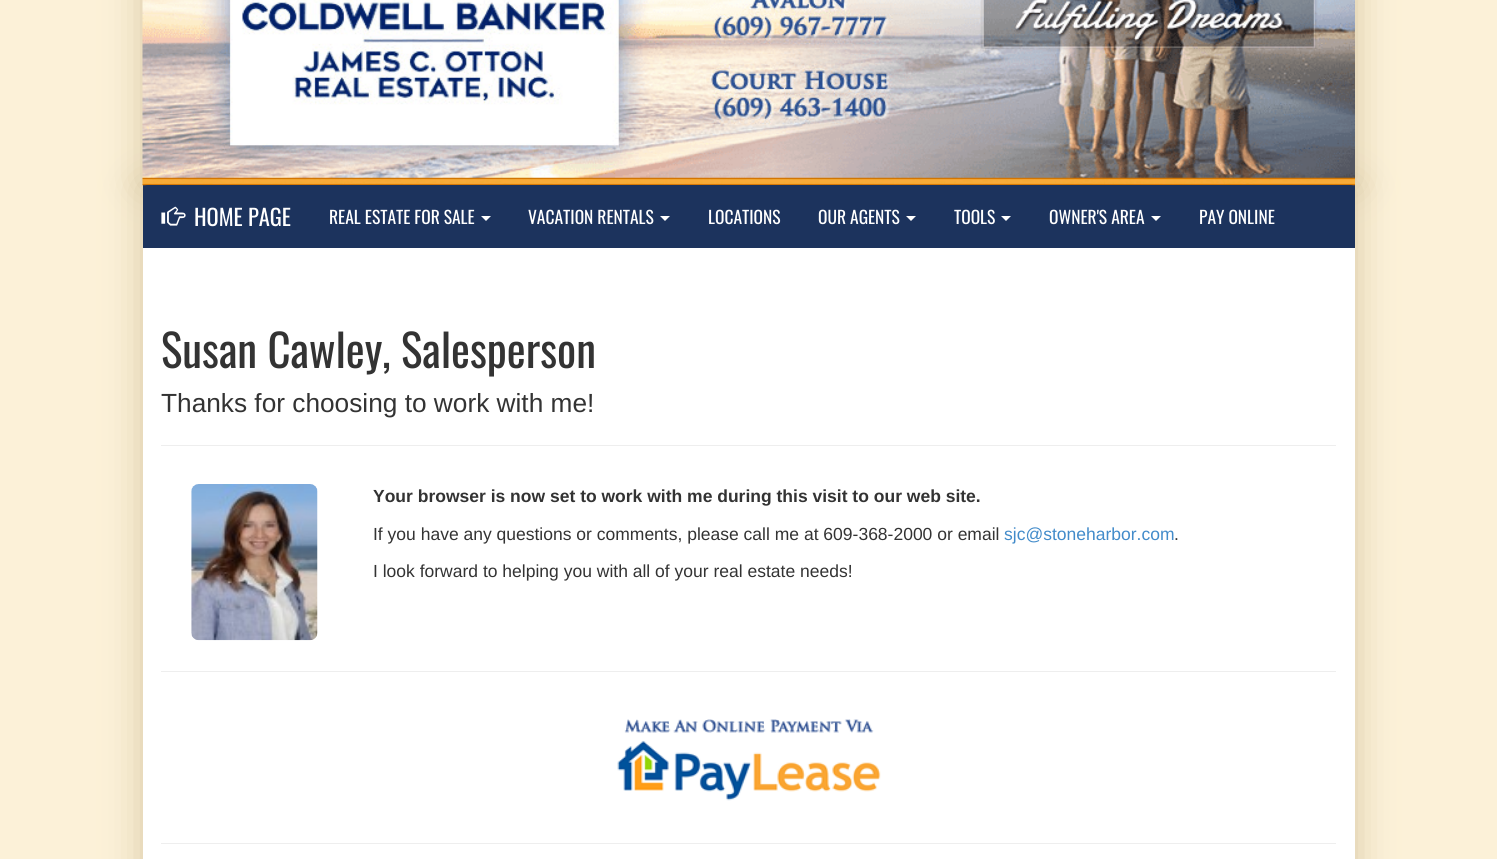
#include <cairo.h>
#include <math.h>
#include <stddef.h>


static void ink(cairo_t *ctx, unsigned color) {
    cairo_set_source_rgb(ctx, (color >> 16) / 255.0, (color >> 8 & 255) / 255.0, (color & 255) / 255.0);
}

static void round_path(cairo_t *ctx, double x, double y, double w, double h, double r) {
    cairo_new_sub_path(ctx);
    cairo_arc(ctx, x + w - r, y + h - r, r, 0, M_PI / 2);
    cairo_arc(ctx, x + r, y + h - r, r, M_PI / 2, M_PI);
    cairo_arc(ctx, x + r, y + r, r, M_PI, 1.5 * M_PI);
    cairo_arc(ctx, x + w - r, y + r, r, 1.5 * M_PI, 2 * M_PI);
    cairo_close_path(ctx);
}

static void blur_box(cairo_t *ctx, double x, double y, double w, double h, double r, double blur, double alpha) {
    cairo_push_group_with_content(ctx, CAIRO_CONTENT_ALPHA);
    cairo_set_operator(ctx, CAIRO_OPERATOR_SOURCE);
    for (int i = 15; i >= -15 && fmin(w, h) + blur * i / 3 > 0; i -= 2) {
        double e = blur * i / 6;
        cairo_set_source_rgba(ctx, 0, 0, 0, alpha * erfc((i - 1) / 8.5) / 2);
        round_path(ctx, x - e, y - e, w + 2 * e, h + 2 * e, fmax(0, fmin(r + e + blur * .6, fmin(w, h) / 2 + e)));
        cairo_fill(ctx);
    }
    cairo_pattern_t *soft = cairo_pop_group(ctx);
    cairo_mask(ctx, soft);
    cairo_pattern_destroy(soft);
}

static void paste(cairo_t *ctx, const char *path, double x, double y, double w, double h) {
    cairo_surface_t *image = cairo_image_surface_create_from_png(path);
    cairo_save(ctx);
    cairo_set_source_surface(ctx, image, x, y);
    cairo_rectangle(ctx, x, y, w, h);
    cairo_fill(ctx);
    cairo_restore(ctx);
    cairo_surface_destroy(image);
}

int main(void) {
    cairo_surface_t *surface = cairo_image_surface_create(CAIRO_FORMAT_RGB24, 1497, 859);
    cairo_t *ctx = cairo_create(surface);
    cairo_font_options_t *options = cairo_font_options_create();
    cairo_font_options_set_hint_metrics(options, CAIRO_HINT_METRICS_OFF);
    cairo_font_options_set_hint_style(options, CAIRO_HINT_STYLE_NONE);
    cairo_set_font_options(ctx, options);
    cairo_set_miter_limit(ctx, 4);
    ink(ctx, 0xFCF1D8);
    cairo_paint(ctx);
    ink(ctx, 0xD6C6A2);
    blur_box(ctx, 143, -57, 1212, 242, 0, 19, 1);
    blur_box(ctx, 143, 185, 1212, 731, 0, 19, 1);
    ink(ctx, 0x1C335D);
    cairo_rectangle(ctx, 143, 185, 1212, 63);
    cairo_fill(ctx);
    paste(ctx, "media/1.png", 142, 0, 1213, 186);
    ink(ctx, 0xFFFFFF);
    cairo_rectangle(ctx, 143, 248, 1212, 611);
    cairo_fill(ctx);
    ink(ctx, 0x1C335D);
    round_path(ctx, 143, 185, 1212, 63, 5);
    cairo_fill(ctx);
    paste(ctx, "media/2.png", 161, 206, 25, 20);
    cairo_select_font_face(ctx, "Oswald", CAIRO_FONT_SLANT_NORMAL, CAIRO_FONT_WEIGHT_NORMAL);
    cairo_set_font_size(ctx, 22.5);
    ink(ctx, 0xFFFFFF);
    cairo_move_to(ctx, 194, 226);
    cairo_show_text(ctx, "HOME PAGE");
    cairo_set_font_size(ctx, 17.5);
    cairo_move_to(ctx, 329, 224);
    cairo_show_text(ctx, "REAL ESTATE FOR SALE");
    cairo_new_path(ctx);
    cairo_move_to(ctx, 481, 216);
    cairo_line_to(ctx, 491, 216);
    cairo_line_to(ctx, 486, 221);
    cairo_close_path(ctx);
    cairo_fill(ctx);
    cairo_move_to(ctx, 528, 224);
    cairo_show_text(ctx, "VACATION RENTALS");
    cairo_new_path(ctx);
    cairo_move_to(ctx, 660, 216);
    cairo_line_to(ctx, 670, 216);
    cairo_line_to(ctx, 665, 221);
    cairo_close_path(ctx);
    cairo_fill(ctx);
    cairo_move_to(ctx, 708, 224);
    cairo_show_text(ctx, "LOCATIONS");
    cairo_move_to(ctx, 818, 224);
    cairo_show_text(ctx, "OUR AGENTS");
    cairo_new_path(ctx);
    cairo_move_to(ctx, 906, 216);
    cairo_line_to(ctx, 916, 216);
    cairo_line_to(ctx, 911, 221);
    cairo_close_path(ctx);
    cairo_fill(ctx);
    cairo_move_to(ctx, 954, 224);
    cairo_show_text(ctx, "TOOLS");
    cairo_new_path(ctx);
    cairo_move_to(ctx, 1001, 216);
    cairo_line_to(ctx, 1011, 216);
    cairo_line_to(ctx, 1006, 221);
    cairo_close_path(ctx);
    cairo_fill(ctx);
    cairo_move_to(ctx, 1049, 224);
    cairo_show_text(ctx, "OWNER'S AREA");
    cairo_new_path(ctx);
    cairo_move_to(ctx, 1151, 216);
    cairo_line_to(ctx, 1161, 216);
    cairo_line_to(ctx, 1156, 221);
    cairo_close_path(ctx);
    cairo_fill(ctx);
    cairo_move_to(ctx, 1199, 224);
    cairo_show_text(ctx, "PAY ONLINE");
    ink(ctx, 0xEEEEEE);
    cairo_rectangle(ctx, 161, 445, 1175, 1);
    cairo_fill(ctx);
    cairo_set_font_size(ctx, 45);
    ink(ctx, 0x333333);
    cairo_move_to(ctx, 161, 368);
    cairo_show_text(ctx, "Susan Cawley, Salesperson");
    cairo_select_font_face(ctx, "Liberation Sans", CAIRO_FONT_SLANT_NORMAL, CAIRO_FONT_WEIGHT_NORMAL);
    cairo_set_font_size(ctx, 26.25);
    cairo_move_to(ctx, 161, 412);
    cairo_show_text(ctx, "Thanks for choosing to work with me!");
    paste(ctx, "media/3.png", 191, 484, 127, 157);
    cairo_select_font_face(ctx, "Liberation Sans", CAIRO_FONT_SLANT_NORMAL, CAIRO_FONT_WEIGHT_BOLD);
    cairo_set_font_size(ctx, 17.5);
    cairo_move_to(ctx, 373, 502);
    cairo_show_text(ctx, "Your browser is now set to work with me during this visit to our web site.");
    cairo_select_font_face(ctx, "Liberation Sans", CAIRO_FONT_SLANT_NORMAL, CAIRO_FONT_WEIGHT_NORMAL);
    cairo_move_to(ctx, 373, 540);
    cairo_show_text(ctx, "If you have any questions or comments, please call me at 609-368-2000 or email");
    ink(ctx, 0x428BCA);
    cairo_move_to(ctx, 1004, 540);
    cairo_show_text(ctx, "sjc@stoneharbor.com");
    ink(ctx, 0x333333);
    cairo_move_to(ctx, 1174, 540);
    cairo_show_text(ctx, ".");
    cairo_move_to(ctx, 373, 577);
    cairo_show_text(ctx, "I look forward to helping you with all of your real estate needs!");
    ink(ctx, 0xEEEEEE);
    cairo_rectangle(ctx, 161, 671, 1175, 1);
    cairo_fill(ctx);
    paste(ctx, "media/4.png", 617, 719, 264, 82);
    cairo_rectangle(ctx, 161, 843, 1175, 1);
    cairo_fill(ctx);
    cairo_surface_write_to_png(surface, "image.png");
    cairo_font_options_destroy(options);
    cairo_destroy(ctx);
    cairo_surface_destroy(surface);
    return 0;
}
